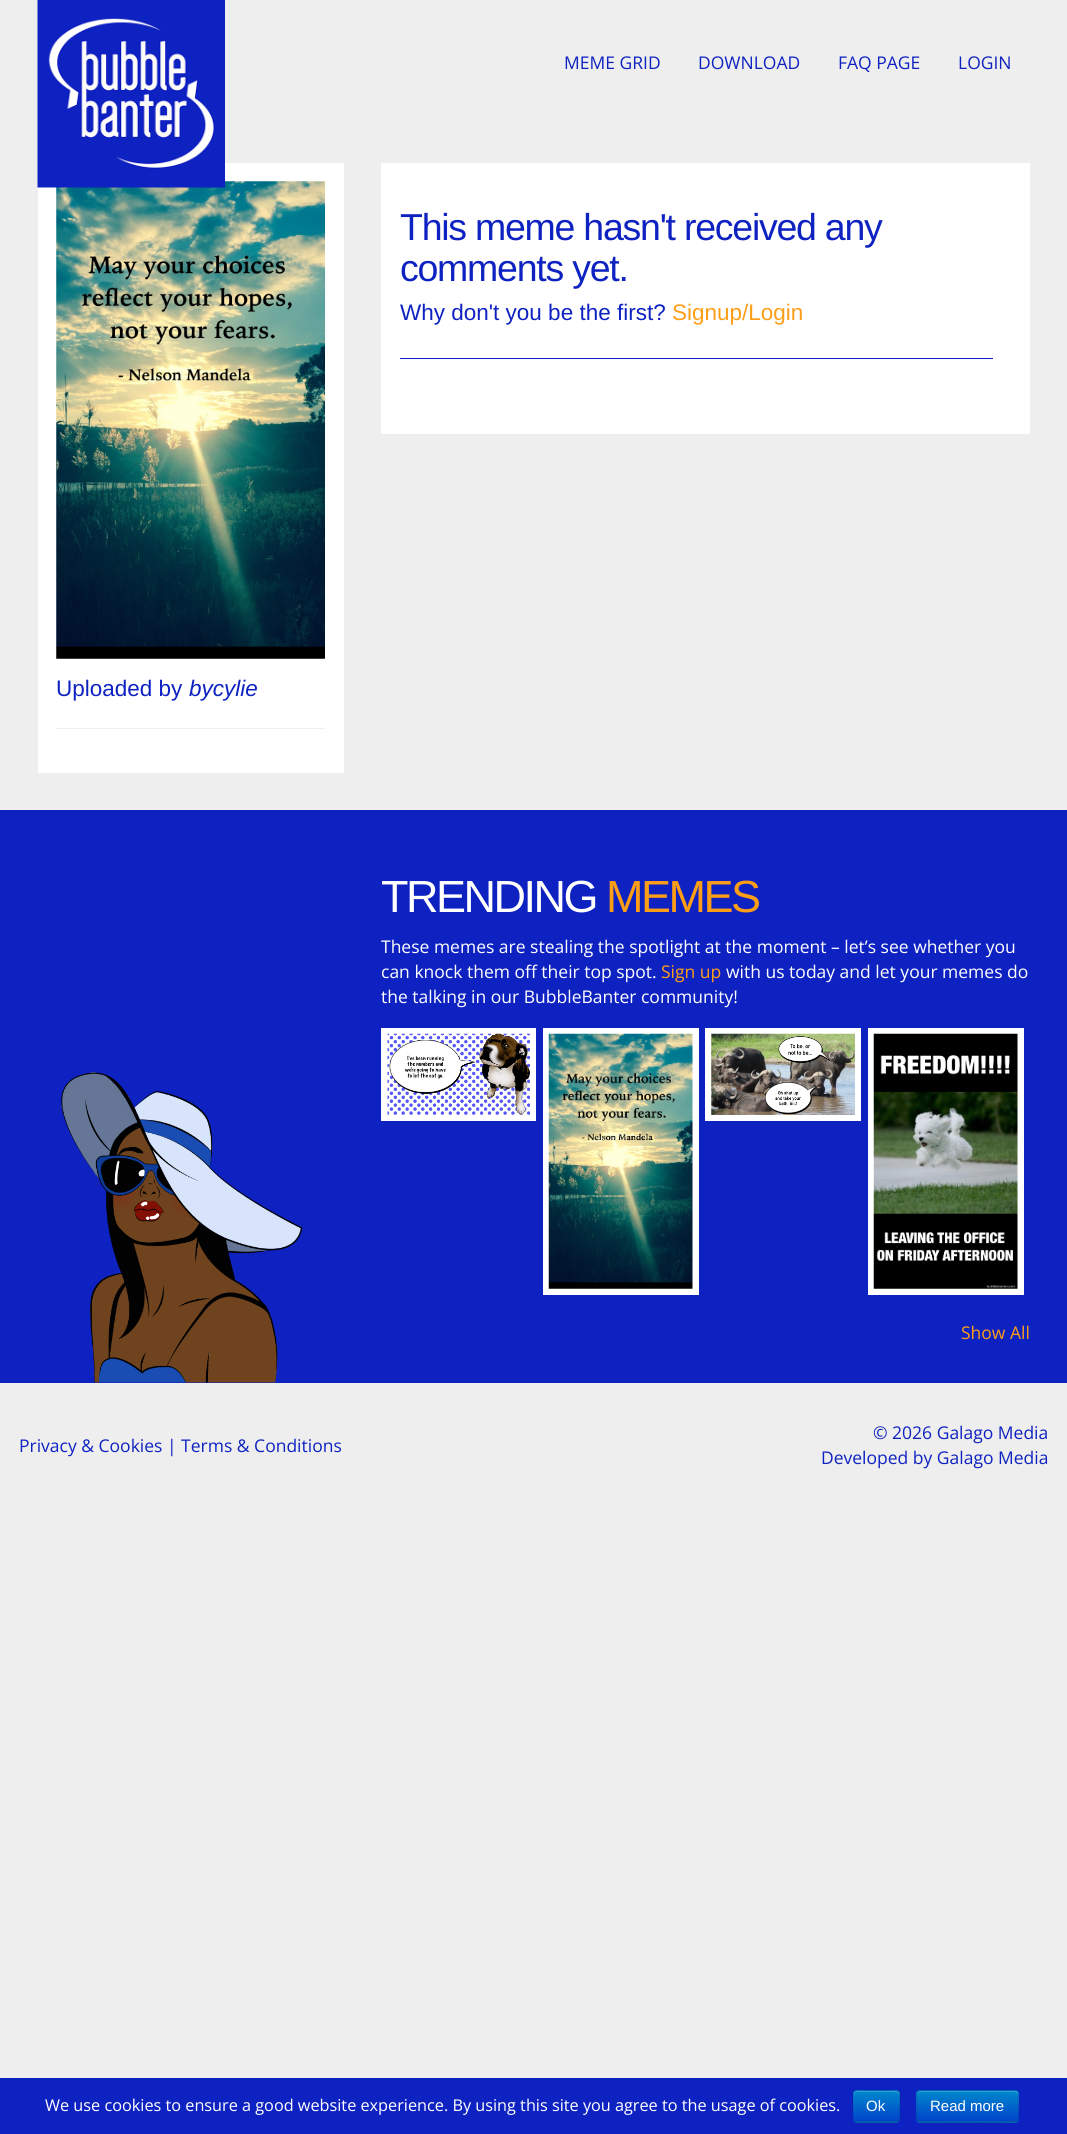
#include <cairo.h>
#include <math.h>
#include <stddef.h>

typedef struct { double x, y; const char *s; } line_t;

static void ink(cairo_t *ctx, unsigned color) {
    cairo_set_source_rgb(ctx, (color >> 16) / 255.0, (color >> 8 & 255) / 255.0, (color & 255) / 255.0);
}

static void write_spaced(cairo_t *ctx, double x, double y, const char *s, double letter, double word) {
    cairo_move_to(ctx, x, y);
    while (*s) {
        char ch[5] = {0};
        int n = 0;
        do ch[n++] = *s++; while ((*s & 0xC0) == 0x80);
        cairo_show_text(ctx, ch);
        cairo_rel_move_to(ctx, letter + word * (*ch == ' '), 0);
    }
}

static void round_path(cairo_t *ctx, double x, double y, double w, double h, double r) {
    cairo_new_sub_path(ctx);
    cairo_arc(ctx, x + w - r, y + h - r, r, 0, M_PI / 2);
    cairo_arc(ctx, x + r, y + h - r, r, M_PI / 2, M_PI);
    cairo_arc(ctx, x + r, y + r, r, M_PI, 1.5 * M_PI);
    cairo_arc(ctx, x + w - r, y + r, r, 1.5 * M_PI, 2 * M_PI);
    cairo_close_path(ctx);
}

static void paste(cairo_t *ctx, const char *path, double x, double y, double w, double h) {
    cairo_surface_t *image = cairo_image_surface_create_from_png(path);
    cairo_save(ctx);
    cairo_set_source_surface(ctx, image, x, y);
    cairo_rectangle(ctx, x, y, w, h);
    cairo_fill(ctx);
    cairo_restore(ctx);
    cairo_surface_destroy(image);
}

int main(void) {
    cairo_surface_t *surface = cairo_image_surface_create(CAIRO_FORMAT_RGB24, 1067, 2134);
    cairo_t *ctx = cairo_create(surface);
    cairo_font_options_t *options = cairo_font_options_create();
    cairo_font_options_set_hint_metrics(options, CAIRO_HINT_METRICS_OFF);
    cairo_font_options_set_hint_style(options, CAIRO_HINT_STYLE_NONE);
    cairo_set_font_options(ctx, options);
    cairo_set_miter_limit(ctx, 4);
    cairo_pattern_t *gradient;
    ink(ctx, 0xEEEEEE);
    cairo_paint(ctx);
    ink(ctx, 0xFFFFFF);
    cairo_rectangle(ctx, 38, 163, 306, 610);
    cairo_fill(ctx);
    paste(ctx, "media/2.png", 56, 181, 269, 478);
    paste(ctx, "media/1.png", 37, 0, 188, 188);
    cairo_select_font_face(ctx, "Open Sans", CAIRO_FONT_SLANT_NORMAL, CAIRO_FONT_WEIGHT_NORMAL);
    cairo_set_font_size(ctx, 17.5);
    ink(ctx, 0x0E22C1);
    {
        static const line_t items[] = {
            {564, 69, "MEME GRID"},
            {698, 69, "DOWNLOAD"},
            {838, 69, "FAQ PAGE"},
            {958, 69, "LOGIN"},
        };
        for (size_t i = 0; i < sizeof items / sizeof *items; i++) {
            cairo_move_to(ctx, items[i].x, items[i].y);
            cairo_show_text(ctx, items[i].s);
        }
    }
    ink(ctx, 0xFFFFFF);
    cairo_rectangle(ctx, 381, 163, 649, 271);
    cairo_fill(ctx);
    ink(ctx, 0x0E22C1);
    cairo_rectangle(ctx, 400, 358, 593, 1);
    cairo_fill(ctx);
    cairo_select_font_face(ctx, "Liberation Sans", CAIRO_FONT_SLANT_NORMAL, CAIRO_FONT_WEIGHT_NORMAL);
    cairo_set_font_size(ctx, 37.5);
    write_spaced(ctx, 400, 240, "This meme hasn't received any", -1.25, 0);
    write_spaced(ctx, 400, 281, "comments yet.", -1.25, 0);
    cairo_set_font_size(ctx, 22.5);
    cairo_move_to(ctx, 400, 320);
    cairo_show_text(ctx, "Why don't you be the first?");
    ink(ctx, 0xFE9E16);
    cairo_move_to(ctx, 672, 320);
    cairo_show_text(ctx, "Signup/Login");
    ink(ctx, 0x0E22C1);
    cairo_move_to(ctx, 56, 696);
    cairo_show_text(ctx, "Uploaded by");
    cairo_select_font_face(ctx, "Liberation Sans", CAIRO_FONT_SLANT_ITALIC, CAIRO_FONT_WEIGHT_NORMAL);
    cairo_move_to(ctx, 189, 696);
    cairo_show_text(ctx, "bycylie");
    ink(ctx, 0xEEEEEE);
    cairo_rectangle(ctx, 56, 728, 269, 1);
    cairo_fill(ctx);
    ink(ctx, 0x0E22C1);
    cairo_rectangle(ctx, 0, 810, 1067, 573);
    cairo_fill(ctx);
    paste(ctx, "media/3.png", 61, 1071, 242, 312);
    cairo_select_font_face(ctx, "Liberation Sans", CAIRO_FONT_SLANT_NORMAL, CAIRO_FONT_WEIGHT_NORMAL);
    cairo_set_font_size(ctx, 45);
    ink(ctx, 0xFFFFFF);
    write_spaced(ctx, 381, 912, "TRENDING", -2.5, 0);
    ink(ctx, 0xFE9E16);
    write_spaced(ctx, 606, 912, "MEMES", -2.5, 0);
    cairo_select_font_face(ctx, "Open Sans", CAIRO_FONT_SLANT_NORMAL, CAIRO_FONT_WEIGHT_NORMAL);
    cairo_set_font_size(ctx, 17.5);
    ink(ctx, 0xFFFFFF);
    cairo_move_to(ctx, 381, 953);
    cairo_show_text(ctx, "These memes are stealing the spotlight at the moment – let’s see whether you");
    cairo_move_to(ctx, 381, 978);
    cairo_show_text(ctx, "can knock them off their top spot.");
    ink(ctx, 0xFE9E16);
    cairo_move_to(ctx, 661, 978);
    cairo_show_text(ctx, "Sign up");
    ink(ctx, 0xFFFFFF);
    cairo_move_to(ctx, 726, 978);
    cairo_show_text(ctx, "with us today and let your memes do");
    cairo_move_to(ctx, 381, 1003);
    cairo_show_text(ctx, "the talking in our BubbleBanter community!");
    cairo_rectangle(ctx, 381, 1028, 155, 93);
    cairo_fill(ctx);
    paste(ctx, "media/4.png", 387, 1033, 143, 82);
    cairo_rectangle(ctx, 543, 1028, 156, 267);
    cairo_fill(ctx);
    paste(ctx, "media/5.png", 548, 1033, 145, 256);
    cairo_rectangle(ctx, 705, 1028, 156, 93);
    cairo_fill(ctx);
    paste(ctx, "media/6.png", 711, 1033, 144, 82);
    cairo_rectangle(ctx, 868, 1028, 156, 267);
    cairo_fill(ctx);
    paste(ctx, "media/7.png", 873, 1033, 145, 256);
    ink(ctx, 0xFE9E16);
    cairo_move_to(ctx, 961, 1339);
    cairo_show_text(ctx, "Show All");
    ink(ctx, 0x0E22C1);
    {
        static const line_t items[] = {
            {19, 1452, "Privacy & Cookies | Terms & Conditions"},
            {873, 1439, "© 2026 Galago Media"},
            {821, 1464, "Developed by Galago Media"},
        };
        for (size_t i = 0; i < sizeof items / sizeof *items; i++) {
            cairo_move_to(ctx, items[i].x, items[i].y);
            cairo_show_text(ctx, items[i].s);
        }
    }
    cairo_rectangle(ctx, 0, 2078, 1067, 56);
    cairo_fill(ctx);
    cairo_set_font_size(ctx, 16.25);
    ink(ctx, 0xFFFFFF);
    cairo_move_to(ctx, 45, 2111);
    cairo_show_text(ctx, "We use cookies to ensure a good website experience. By using this site you agree to the usage of cookies.");
    ink(ctx, 0x006DCC);
    round_path(ctx, 853, 2090, 47, 33, 4);
    cairo_fill(ctx);
    cairo_save(ctx);
    round_path(ctx, 853, 2090, 47, 33, 4);
    cairo_clip(ctx);
    gradient = cairo_pattern_create_linear(876, 2091, 876, 2121);
    cairo_pattern_add_color_stop_rgba(gradient, 0, 0, 0.533, 0.8, 1);
    cairo_pattern_add_color_stop_rgba(gradient, 1, 0, 0.267, 0.8, 1);
    cairo_set_source(ctx, gradient);
    cairo_pattern_destroy(gradient);
    cairo_rectangle(ctx, 853, 2091, 47, 30);
    cairo_fill(ctx);
    cairo_restore(ctx);
    ink(ctx, 0x339FD6);
    cairo_new_path(ctx);
    cairo_move_to(ctx, 856, 2092);
    cairo_line_to(ctx, 896, 2092);
    cairo_curve_to(ctx, 898, 2092, 899, 2094, 899, 2095);
    cairo_curve_to(ctx, 899, 2089, 895, 2091, 890, 2091);
    cairo_line_to(ctx, 863, 2091);
    cairo_curve_to(ctx, 858, 2091, 854, 2089, 854, 2095);
    cairo_curve_to(ctx, 854, 2094, 855, 2092, 856, 2092);
    cairo_close_path(ctx);
    cairo_fill(ctx);
    cairo_new_path(ctx);
    cairo_move_to(ctx, 898.5, 2121);
    cairo_line_to(ctx, 896, 2122);
    cairo_line_to(ctx, 856, 2122);
    cairo_line_to(ctx, 854, 2121);
    cairo_set_source_rgba(ctx, 0, 0, 0, 0.25);
    cairo_set_line_width(ctx, 1.2);
    cairo_stroke(ctx);
    cairo_new_path(ctx);
    cairo_move_to(ctx, 854, 2121);
    cairo_curve_to(ctx, 852, 2119, 853, 2109, 853, 2106);
    cairo_curve_to(ctx, 853, 2091.5, 849.5, 2090.5, 863, 2090.5);
    cairo_line_to(ctx, 889.5, 2090.5);
    cairo_curve_to(ctx, 903, 2090.5, 899.5, 2091.5, 899.5, 2106);
    cairo_curve_to(ctx, 899.5, 2109, 900.5, 2119, 898.5, 2121);
    cairo_set_source_rgba(ctx, 0, 0, 0, 0.1);
    cairo_stroke(ctx);
    cairo_select_font_face(ctx, "Liberation Sans", CAIRO_FONT_SLANT_NORMAL, CAIRO_FONT_WEIGHT_NORMAL);
    cairo_set_font_size(ctx, 15);
    ink(ctx, 0xFFFFFF);
    cairo_move_to(ctx, 866, 2111);
    cairo_show_text(ctx, "Ok");
    ink(ctx, 0x006DCC);
    round_path(ctx, 916, 2090, 103, 33, 4);
    cairo_fill(ctx);
    cairo_save(ctx);
    round_path(ctx, 916, 2090, 103, 33, 4);
    cairo_clip(ctx);
    gradient = cairo_pattern_create_linear(968, 2091, 968, 2121);
    cairo_pattern_add_color_stop_rgba(gradient, 0, 0, 0.533, 0.8, 1);
    cairo_pattern_add_color_stop_rgba(gradient, 1, 0, 0.267, 0.8, 1);
    cairo_set_source(ctx, gradient);
    cairo_pattern_destroy(gradient);
    cairo_rectangle(ctx, 916, 2091, 103, 30);
    cairo_fill(ctx);
    cairo_restore(ctx);
    cairo_set_source_rgba(ctx, 1, 1, 1, 0.2);
    cairo_new_path(ctx);
    cairo_move_to(ctx, 920, 2092);
    cairo_line_to(ctx, 1015, 2092);
    cairo_curve_to(ctx, 1016, 2092, 1018, 2094, 1018, 2095);
    cairo_line_to(ctx, 1018, 2094);
    cairo_curve_to(ctx, 1018, 2092, 1017, 2091, 1016, 2091);
    cairo_line_to(ctx, 920, 2091);
    cairo_curve_to(ctx, 919, 2091, 918, 2092, 918, 2094);
    cairo_line_to(ctx, 918, 2095);
    cairo_curve_to(ctx, 918, 2094, 919, 2092, 920, 2092);
    cairo_close_path(ctx);
    cairo_fill(ctx);
    cairo_new_path(ctx);
    cairo_move_to(ctx, 1017, 2121);
    cairo_curve_to(ctx, 1015, 2123, 944.5, 2122, 936, 2122);
    cairo_line_to(ctx, 920, 2122);
    cairo_line_to(ctx, 918, 2121);
    ink(ctx, 0x005299);
    cairo_stroke(ctx);
    cairo_new_path(ctx);
    cairo_move_to(ctx, 918, 2121);
    cairo_curve_to(ctx, 915.5, 2119, 917, 2113, 917, 2110.5);
    cairo_curve_to(ctx, 917, 2087, 912.5, 2090.5, 936, 2090.5);
    cairo_line_to(ctx, 999, 2090.5);
    cairo_curve_to(ctx, 1021, 2090.5, 1018, 2086.5, 1018, 2106);
    cairo_curve_to(ctx, 1018, 2109, 1019.5, 2119, 1017, 2121);
    cairo_set_source_rgba(ctx, 0, 0, 0, 0.1);
    cairo_stroke(ctx);
    ink(ctx, 0xFFFFFF);
    cairo_move_to(ctx, 930, 2111);
    cairo_show_text(ctx, "Read more");
    cairo_surface_write_to_png(surface, "image.png");
    cairo_font_options_destroy(options);
    cairo_destroy(ctx);
    cairo_surface_destroy(surface);
    return 0;
}
